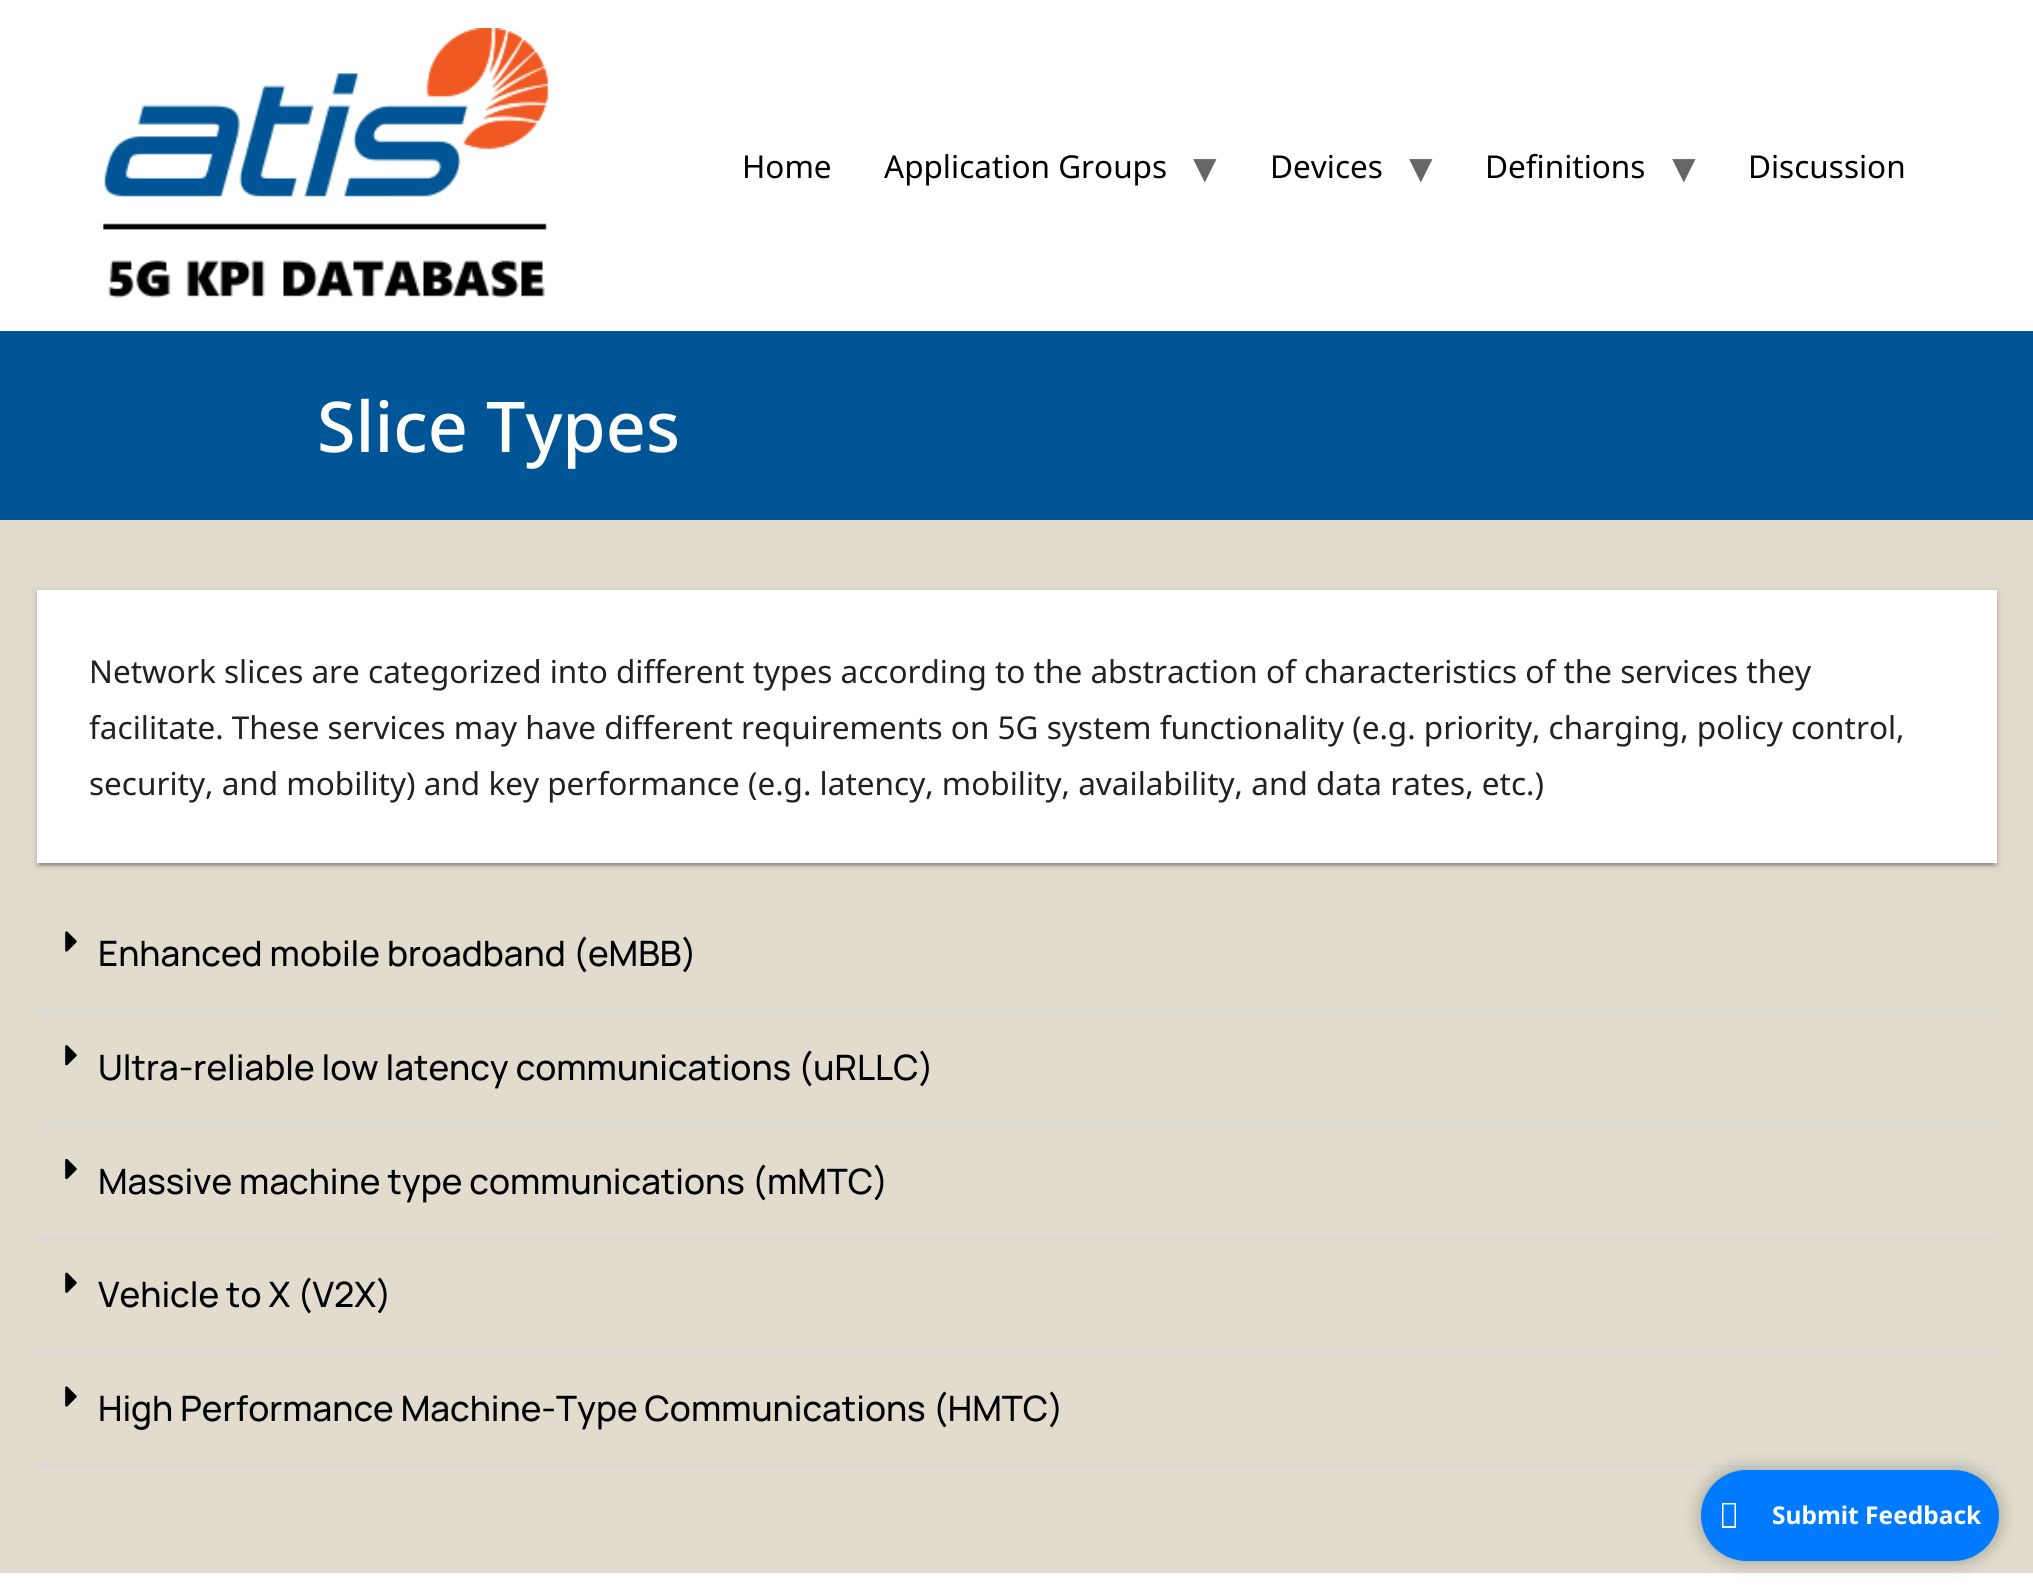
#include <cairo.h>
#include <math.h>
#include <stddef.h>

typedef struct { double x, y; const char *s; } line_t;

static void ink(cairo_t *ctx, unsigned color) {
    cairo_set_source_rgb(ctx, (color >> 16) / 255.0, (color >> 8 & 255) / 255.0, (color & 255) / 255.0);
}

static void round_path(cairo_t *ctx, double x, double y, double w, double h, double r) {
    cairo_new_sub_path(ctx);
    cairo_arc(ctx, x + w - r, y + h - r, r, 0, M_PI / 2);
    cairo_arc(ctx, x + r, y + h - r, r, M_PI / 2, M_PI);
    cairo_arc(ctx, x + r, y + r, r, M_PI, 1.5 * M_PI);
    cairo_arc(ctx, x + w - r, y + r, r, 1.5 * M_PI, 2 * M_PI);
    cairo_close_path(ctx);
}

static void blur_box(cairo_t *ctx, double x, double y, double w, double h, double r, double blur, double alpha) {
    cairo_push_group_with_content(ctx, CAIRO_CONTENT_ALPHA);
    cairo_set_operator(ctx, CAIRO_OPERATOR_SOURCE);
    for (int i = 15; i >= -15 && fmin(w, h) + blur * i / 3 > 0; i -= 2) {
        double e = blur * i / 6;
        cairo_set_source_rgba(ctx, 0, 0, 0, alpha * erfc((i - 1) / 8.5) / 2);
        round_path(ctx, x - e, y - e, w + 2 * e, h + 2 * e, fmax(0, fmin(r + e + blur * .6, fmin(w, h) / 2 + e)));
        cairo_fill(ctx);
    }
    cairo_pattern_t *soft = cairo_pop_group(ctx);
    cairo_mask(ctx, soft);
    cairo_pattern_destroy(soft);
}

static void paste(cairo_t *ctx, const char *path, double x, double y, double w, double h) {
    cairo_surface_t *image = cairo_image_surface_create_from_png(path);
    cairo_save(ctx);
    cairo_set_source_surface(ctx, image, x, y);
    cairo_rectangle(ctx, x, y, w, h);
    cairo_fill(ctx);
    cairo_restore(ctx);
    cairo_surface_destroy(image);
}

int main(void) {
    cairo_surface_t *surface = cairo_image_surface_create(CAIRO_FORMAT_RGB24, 2033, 1595);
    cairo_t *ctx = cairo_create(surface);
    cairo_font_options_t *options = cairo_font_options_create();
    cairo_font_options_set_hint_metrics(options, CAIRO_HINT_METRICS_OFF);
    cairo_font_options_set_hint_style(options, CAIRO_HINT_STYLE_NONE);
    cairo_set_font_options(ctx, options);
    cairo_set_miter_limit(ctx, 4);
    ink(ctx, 0xE1DCCD);
    cairo_paint(ctx);
    ink(ctx, 0xFFFFFF);
    cairo_rectangle(ctx, 0, 0, 2033, 331);
    cairo_fill(ctx);
    paste(ctx, "media/1.png", 102, 28, 447, 270);
    cairo_select_font_face(ctx, "Noto Sans", CAIRO_FONT_SLANT_NORMAL, CAIRO_FONT_WEIGHT_NORMAL);
    cairo_set_font_size(ctx, 31.5);
    ink(ctx, 0x000000);
    cairo_move_to(ctx, 742, 178);
    cairo_show_text(ctx, "Home");
    cairo_move_to(ctx, 884, 178);
    cairo_show_text(ctx, "Application Groups");
    cairo_select_font_face(ctx, "DejaVu Sans", CAIRO_FONT_SLANT_NORMAL, CAIRO_FONT_WEIGHT_NORMAL);
    cairo_set_font_size(ctx, 47);
    ink(ctx, 0x666666);
    cairo_move_to(ctx, 1193, 183);
    cairo_show_text(ctx, "▾");
    cairo_select_font_face(ctx, "Noto Sans", CAIRO_FONT_SLANT_NORMAL, CAIRO_FONT_WEIGHT_NORMAL);
    cairo_set_font_size(ctx, 31.5);
    ink(ctx, 0x000000);
    cairo_move_to(ctx, 1270, 178);
    cairo_show_text(ctx, "Devices");
    cairo_select_font_face(ctx, "DejaVu Sans", CAIRO_FONT_SLANT_NORMAL, CAIRO_FONT_WEIGHT_NORMAL);
    cairo_set_font_size(ctx, 47);
    ink(ctx, 0x666666);
    cairo_move_to(ctx, 1409, 183);
    cairo_show_text(ctx, "▾");
    cairo_select_font_face(ctx, "Noto Sans", CAIRO_FONT_SLANT_NORMAL, CAIRO_FONT_WEIGHT_NORMAL);
    cairo_set_font_size(ctx, 31.5);
    ink(ctx, 0x000000);
    cairo_move_to(ctx, 1485, 178);
    cairo_show_text(ctx, "Definitions");
    cairo_select_font_face(ctx, "DejaVu Sans", CAIRO_FONT_SLANT_NORMAL, CAIRO_FONT_WEIGHT_NORMAL);
    cairo_set_font_size(ctx, 47);
    ink(ctx, 0x666666);
    cairo_move_to(ctx, 1672, 183);
    cairo_show_text(ctx, "▾");
    cairo_select_font_face(ctx, "Noto Sans", CAIRO_FONT_SLANT_NORMAL, CAIRO_FONT_WEIGHT_NORMAL);
    cairo_set_font_size(ctx, 31.5);
    ink(ctx, 0x000000);
    cairo_move_to(ctx, 1748, 178);
    cairo_show_text(ctx, "Discussion");
    ink(ctx, 0x005596);
    cairo_rectangle(ctx, 0, 331, 2033, 189);
    cairo_fill(ctx);
    cairo_select_font_face(ctx, "Noto Sans Medium", CAIRO_FONT_SLANT_NORMAL, CAIRO_FONT_WEIGHT_NORMAL);
    cairo_set_font_size(ctx, 70);
    ink(ctx, 0xFFFFFF);
    cairo_move_to(ctx, 317, 452);
    cairo_show_text(ctx, "Slice Types");
    ink(ctx, 0x000000);
    blur_box(ctx, 37, 592, 1960, 273, 0, 4.5, 0.12);
    blur_box(ctx, 37, 593, 1960, 273, 0, 2, 0.14);
    blur_box(ctx, 40, 599, 1953, 266, 0, 1, 0.2);
    ink(ctx, 0xFFFFFF);
    cairo_rectangle(ctx, 37, 590, 1960, 273);
    cairo_fill(ctx);
    cairo_select_font_face(ctx, "Noto Sans", CAIRO_FONT_SLANT_NORMAL, CAIRO_FONT_WEIGHT_NORMAL);
    cairo_set_font_size(ctx, 31.5);
    ink(ctx, 0x212121);
    {
        static const line_t items[] = {
            {89, 683, "Network slices are categorized into different types according to the abstraction of characteristics of the services they"},
            {89, 739, "facilitate. These services may have different requirements on 5G system functionality (e.g. priority, charging, policy control,"},
            {89, 795, "security, and mobility) and key performance (e.g. latency, mobility, availability, and data rates, etc.)"},
        };
        for (size_t i = 0; i < sizeof items / sizeof *items; i++) {
            cairo_move_to(ctx, items[i].x, items[i].y);
            cairo_show_text(ctx, items[i].s);
        }
    }
    ink(ctx, 0xD5D8DC);
    cairo_rectangle(ctx, 37, 1010, 1960, 2);
    cairo_fill(ctx);
    paste(ctx, "media/2.png", 65, 931, 12, 21);
    cairo_select_font_face(ctx, "Manrope Medium", CAIRO_FONT_SLANT_NORMAL, CAIRO_FONT_WEIGHT_NORMAL);
    cairo_set_font_size(ctx, 35);
    ink(ctx, 0x000000);
    cairo_move_to(ctx, 98, 966);
    cairo_show_text(ctx, "Enhanced mobile broadband (eMBB)");
    ink(ctx, 0xD5D8DC);
    cairo_rectangle(ctx, 37, 1124, 1960, 2);
    cairo_fill(ctx);
    paste(ctx, "media/3.png", 65, 1045, 12, 21);
    ink(ctx, 0x000000);
    cairo_move_to(ctx, 98, 1080);
    cairo_show_text(ctx, "Ultra-reliable low latency communications (uRLLC)");
    ink(ctx, 0xD5D8DC);
    cairo_rectangle(ctx, 37, 1237, 1960, 2);
    cairo_fill(ctx);
    paste(ctx, "media/4.png", 65, 1158, 12, 22);
    ink(ctx, 0x000000);
    cairo_move_to(ctx, 98, 1194);
    cairo_show_text(ctx, "Massive machine type communications (mMTC)");
    ink(ctx, 0xD5D8DC);
    cairo_rectangle(ctx, 37, 1351, 1960, 2);
    cairo_fill(ctx);
    paste(ctx, "media/5.png", 65, 1272, 12, 21);
    ink(ctx, 0x000000);
    cairo_move_to(ctx, 98, 1307);
    cairo_show_text(ctx, "Vehicle to X (V2X)");
    ink(ctx, 0xD5D8DC);
    cairo_rectangle(ctx, 37, 1465, 1960, 2);
    cairo_fill(ctx);
    paste(ctx, "media/2.png", 65, 1386, 12, 21);
    ink(ctx, 0x000000);
    cairo_move_to(ctx, 98, 1421);
    cairo_show_text(ctx, "High Performance Machine-Type Communications (HMTC)");
    ink(ctx, 0xFFFFFF);
    cairo_rectangle(ctx, 0, 1573, 2033, 22);
    cairo_fill(ctx);
    ink(ctx, 0x000000);
    blur_box(ctx, 1701, 1470, 298, 91, 45.5, 9, 0.3);
    ink(ctx, 0x007BFF);
    round_path(ctx, 1701, 1470, 298, 91, 45.5);
    cairo_fill(ctx);
    ink(ctx, 0xFFFFFF);
    cairo_new_path(ctx);
    cairo_move_to(ctx, 1722, 1528);
    cairo_line_to(ctx, 1722, 1503);
    cairo_line_to(ctx, 1736, 1503);
    cairo_line_to(ctx, 1736, 1528);
    cairo_close_path(ctx);
    cairo_move_to(ctx, 1723.5, 1526);
    cairo_line_to(ctx, 1734.5, 1526);
    cairo_line_to(ctx, 1734.5, 1504.5);
    cairo_line_to(ctx, 1723.5, 1504.5);
    cairo_close_path(ctx);
    cairo_fill(ctx);
    cairo_select_font_face(ctx, "Noto Sans", CAIRO_FONT_SLANT_NORMAL, CAIRO_FONT_WEIGHT_BOLD);
    cairo_set_font_size(ctx, 24.5);
    cairo_move_to(ctx, 1772, 1524);
    cairo_show_text(ctx, "Submit Feedback");
    cairo_surface_write_to_png(surface, "image.png");
    cairo_font_options_destroy(options);
    cairo_destroy(ctx);
    cairo_surface_destroy(surface);
    return 0;
}
